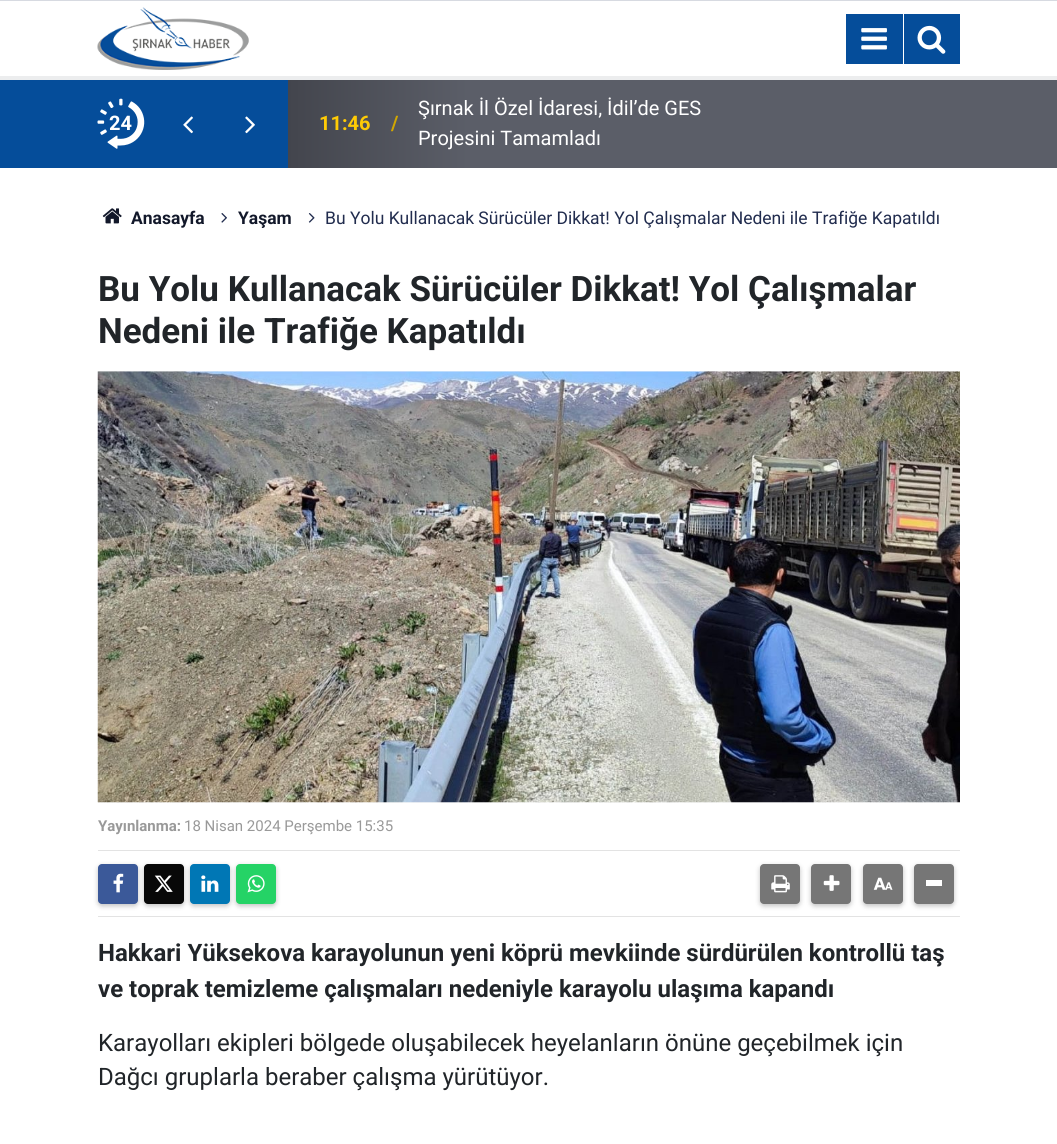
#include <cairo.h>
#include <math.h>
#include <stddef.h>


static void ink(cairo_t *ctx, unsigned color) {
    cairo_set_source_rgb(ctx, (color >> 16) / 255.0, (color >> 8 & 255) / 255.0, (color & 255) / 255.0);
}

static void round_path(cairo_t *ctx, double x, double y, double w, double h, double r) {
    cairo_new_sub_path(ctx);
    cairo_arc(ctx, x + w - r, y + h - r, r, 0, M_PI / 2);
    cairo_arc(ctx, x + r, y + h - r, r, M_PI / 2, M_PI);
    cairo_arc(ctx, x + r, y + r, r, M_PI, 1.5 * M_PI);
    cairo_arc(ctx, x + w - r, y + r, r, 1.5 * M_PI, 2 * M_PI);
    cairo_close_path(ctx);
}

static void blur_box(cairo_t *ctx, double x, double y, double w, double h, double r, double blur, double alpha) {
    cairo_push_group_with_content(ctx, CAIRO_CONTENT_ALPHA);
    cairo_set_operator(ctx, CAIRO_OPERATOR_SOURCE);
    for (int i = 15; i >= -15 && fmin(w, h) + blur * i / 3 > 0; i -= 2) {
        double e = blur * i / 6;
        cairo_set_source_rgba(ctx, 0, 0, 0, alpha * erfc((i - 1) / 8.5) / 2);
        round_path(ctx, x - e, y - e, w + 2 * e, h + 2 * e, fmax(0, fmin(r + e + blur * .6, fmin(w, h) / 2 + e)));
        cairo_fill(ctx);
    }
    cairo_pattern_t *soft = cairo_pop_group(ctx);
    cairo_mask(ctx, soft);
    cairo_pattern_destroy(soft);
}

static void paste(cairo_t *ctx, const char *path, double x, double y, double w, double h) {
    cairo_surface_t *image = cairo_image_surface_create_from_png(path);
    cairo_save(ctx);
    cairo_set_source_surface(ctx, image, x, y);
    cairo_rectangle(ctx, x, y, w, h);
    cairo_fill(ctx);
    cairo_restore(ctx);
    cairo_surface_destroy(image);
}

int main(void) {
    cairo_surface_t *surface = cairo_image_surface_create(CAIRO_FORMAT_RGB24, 1057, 1144);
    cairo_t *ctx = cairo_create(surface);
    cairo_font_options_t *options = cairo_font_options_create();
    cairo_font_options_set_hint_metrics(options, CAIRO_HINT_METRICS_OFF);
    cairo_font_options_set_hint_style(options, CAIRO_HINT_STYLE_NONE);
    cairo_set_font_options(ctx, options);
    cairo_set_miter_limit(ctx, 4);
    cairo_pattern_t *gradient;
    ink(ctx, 0xFFFFFF);
    cairo_paint(ctx);
    ink(ctx, 0xD7DAE1);
    cairo_rectangle(ctx, 0, 0, 1057, 1);
    cairo_fill(ctx);
    ink(ctx, 0xECEDEE);
    cairo_rectangle(ctx, 0, 76, 1057, 4);
    cairo_fill(ctx);
    paste(ctx, "media/1.png", 97, 7, 152, 63);
    ink(ctx, 0x054D9A);
    cairo_rectangle(ctx, 846, 14, 57, 50);
    cairo_fill(ctx);
    paste(ctx, "media/2.png", 861, 28, 26, 22);
    cairo_rectangle(ctx, 904, 14, 56, 50);
    cairo_fill(ctx);
    paste(ctx, "media/3.png", 917, 25, 29, 29);
    cairo_rectangle(ctx, 0, 80, 98, 88);
    cairo_fill(ctx);
    ink(ctx, 0x5B5E68);
    cairo_rectangle(ctx, 960, 80, 97, 88);
    cairo_fill(ctx);
    gradient = cairo_pattern_create_linear(98, 124, 960, 124);
    cairo_pattern_add_color_stop_rgba(gradient, 0.07, 0.02, 0.302, 0.604, 1);
    cairo_pattern_add_color_stop_rgba(gradient, 0.22, 0.02, 0.302, 0.604, 1);
    cairo_pattern_add_color_stop_rgba(gradient, 0.22, 0.263, 0.271, 0.302, 1);
    cairo_pattern_add_color_stop_rgba(gradient, 0.43, 0.357, 0.369, 0.408, 1);
    cairo_set_source(ctx, gradient);
    cairo_pattern_destroy(gradient);
    cairo_rectangle(ctx, 98, 80, 862, 88);
    cairo_fill(ctx);
    paste(ctx, "media/4.png", 97, 98, 48, 51);
    cairo_select_font_face(ctx, "Roboto", CAIRO_FONT_SLANT_NORMAL, CAIRO_FONT_WEIGHT_BOLD);
    cairo_set_font_size(ctx, 20);
    ink(ctx, 0xFFFFFF);
    cairo_move_to(ctx, 109, 130);
    cairo_show_text(ctx, "24");
    paste(ctx, "media/5.png", 183, 116, 10, 18);
    paste(ctx, "media/6.png", 245, 116, 10, 18);
    ink(ctx, 0xFFCB05);
    cairo_move_to(ctx, 319, 130);
    cairo_show_text(ctx, "11:46");
    ink(ctx, 0xD1A600);
    cairo_move_to(ctx, 391, 130);
    cairo_show_text(ctx, "/");
    cairo_select_font_face(ctx, "Roboto", CAIRO_FONT_SLANT_NORMAL, CAIRO_FONT_WEIGHT_NORMAL);
    ink(ctx, 0xFFFFFF);
    cairo_move_to(ctx, 418, 115);
    cairo_show_text(ctx, "Şırnak İl Özel İdaresi, İdil’de GES");
    cairo_move_to(ctx, 418, 145);
    cairo_show_text(ctx, "Projesini Tamamladı");
    paste(ctx, "media/7.png", 102, 208, 20, 16);
    cairo_select_font_face(ctx, "Roboto", CAIRO_FONT_SLANT_NORMAL, CAIRO_FONT_WEIGHT_BOLD);
    cairo_set_font_size(ctx, 17.5);
    ink(ctx, 0x12182A);
    cairo_move_to(ctx, 131, 224);
    cairo_show_text(ctx, "Anasayfa");
    paste(ctx, "media/8.png", 221, 213, 6, 10);
    cairo_move_to(ctx, 238, 224);
    cairo_show_text(ctx, "Yaşam");
    paste(ctx, "media/9.png", 308, 213, 7, 10);
    cairo_select_font_face(ctx, "Roboto", CAIRO_FONT_SLANT_NORMAL, CAIRO_FONT_WEIGHT_NORMAL);
    ink(ctx, 0x212C4E);
    cairo_move_to(ctx, 325, 224);
    cairo_show_text(ctx, "Bu Yolu Kullanacak Sürücüler Dikkat! Yol Çalışmalar Nedeni ile Trafiğe Kapatıldı");
    cairo_select_font_face(ctx, "Roboto", CAIRO_FONT_SLANT_NORMAL, CAIRO_FONT_WEIGHT_BOLD);
    cairo_set_font_size(ctx, 35);
    ink(ctx, 0x212529);
    cairo_move_to(ctx, 98, 301);
    cairo_show_text(ctx, "Bu Yolu Kullanacak Sürücüler Dikkat! Yol Çalışmalar");
    cairo_move_to(ctx, 98, 343);
    cairo_show_text(ctx, "Nedeni ile Trafiğe Kapatıldı");
    ink(ctx, 0xF8F8F8);
    cairo_rectangle(ctx, 98, 371, 862, 432);
    cairo_fill(ctx);
    paste(ctx, "media/10.png", 97, 371, 863, 432);
    cairo_set_font_size(ctx, 15);
    ink(ctx, 0x999999);
    cairo_move_to(ctx, 98, 831);
    cairo_show_text(ctx, "Yayınlanma:");
    cairo_select_font_face(ctx, "Roboto", CAIRO_FONT_SLANT_NORMAL, CAIRO_FONT_WEIGHT_NORMAL);
    cairo_move_to(ctx, 184, 831);
    cairo_show_text(ctx, "18 Nisan 2024 Perşembe 15:35");
    ink(ctx, 0xE3E3E3);
    cairo_rectangle(ctx, 98, 850, 862, 1);
    cairo_fill(ctx);
    cairo_rectangle(ctx, 98, 916, 862, 1);
    cairo_fill(ctx);
    ink(ctx, 0x323232);
    blur_box(ctx, 98, 866, 40, 40, 4, 2.5, 0.3);
    ink(ctx, 0x3B5999);
    round_path(ctx, 98, 864, 40, 40, 4);
    cairo_fill(ctx);
    paste(ctx, "media/11.png", 113, 873, 11, 20);
    ink(ctx, 0x323232);
    blur_box(ctx, 144, 866, 40, 40, 4, 2.5, 0.3);
    ink(ctx, 0x080808);
    round_path(ctx, 144, 864, 40, 40, 4);
    cairo_fill(ctx);
    paste(ctx, "media/12.png", 154, 875, 19, 17);
    ink(ctx, 0x323232);
    blur_box(ctx, 190, 866, 40, 40, 4, 2.5, 0.3);
    ink(ctx, 0x0077B5);
    round_path(ctx, 190, 864, 40, 40, 4);
    cairo_fill(ctx);
    paste(ctx, "media/13.png", 201, 875, 18, 17);
    ink(ctx, 0x323232);
    blur_box(ctx, 236, 866, 40, 40, 4, 2.5, 0.3);
    ink(ctx, 0x25D366);
    round_path(ctx, 236, 864, 40, 40, 4);
    cairo_fill(ctx);
    paste(ctx, "media/14.png", 247, 875, 18, 18);
    ink(ctx, 0x323232);
    blur_box(ctx, 760, 866, 40, 40, 4, 2.5, 0.3);
    ink(ctx, 0x767676);
    round_path(ctx, 760, 864, 40, 40, 4);
    cairo_fill(ctx);
    paste(ctx, "media/15.png", 771, 875, 19, 18);
    ink(ctx, 0x323232);
    blur_box(ctx, 811, 866, 40, 40, 4, 2.5, 0.3);
    ink(ctx, 0x767676);
    round_path(ctx, 811, 864, 40, 40, 4);
    cairo_fill(ctx);
    paste(ctx, "media/16.png", 823, 875, 17, 16);
    ink(ctx, 0x323232);
    blur_box(ctx, 863, 866, 40, 40, 4, 2.5, 0.3);
    ink(ctx, 0x767676);
    round_path(ctx, 863, 864, 40, 40, 4);
    cairo_fill(ctx);
    paste(ctx, "media/17.png", 873, 877, 20, 13);
    ink(ctx, 0x323232);
    blur_box(ctx, 914, 866, 40, 40, 4, 2.5, 0.3);
    ink(ctx, 0x767676);
    round_path(ctx, 914, 864, 40, 40, 4);
    cairo_fill(ctx);
    ink(ctx, 0xFFFFFF);
    cairo_rectangle(ctx, 926, 880, 16, 6);
    cairo_fill(ctx);
    cairo_select_font_face(ctx, "Roboto", CAIRO_FONT_SLANT_NORMAL, CAIRO_FONT_WEIGHT_BOLD);
    cairo_set_font_size(ctx, 24);
    ink(ctx, 0x212529);
    cairo_move_to(ctx, 98, 961);
    cairo_show_text(ctx, "Hakkari Yüksekova karayolunun yeni köprü mevkiinde sürdürülen kontrollü taş");
    cairo_move_to(ctx, 98, 997);
    cairo_show_text(ctx, "ve toprak temizleme çalışmaları nedeniyle karayolu ulaşıma kapandı");
    cairo_select_font_face(ctx, "Roboto", CAIRO_FONT_SLANT_NORMAL, CAIRO_FONT_WEIGHT_NORMAL);
    cairo_move_to(ctx, 98, 1051);
    cairo_show_text(ctx, "Karayolları ekipleri bölgede oluşabilecek heyelanların önüne geçebilmek için");
    cairo_move_to(ctx, 98, 1085);
    cairo_show_text(ctx, "Dağcı gruplarla beraber çalışma yürütüyor.");
    cairo_surface_write_to_png(surface, "image.png");
    cairo_font_options_destroy(options);
    cairo_destroy(ctx);
    cairo_surface_destroy(surface);
    return 0;
}
